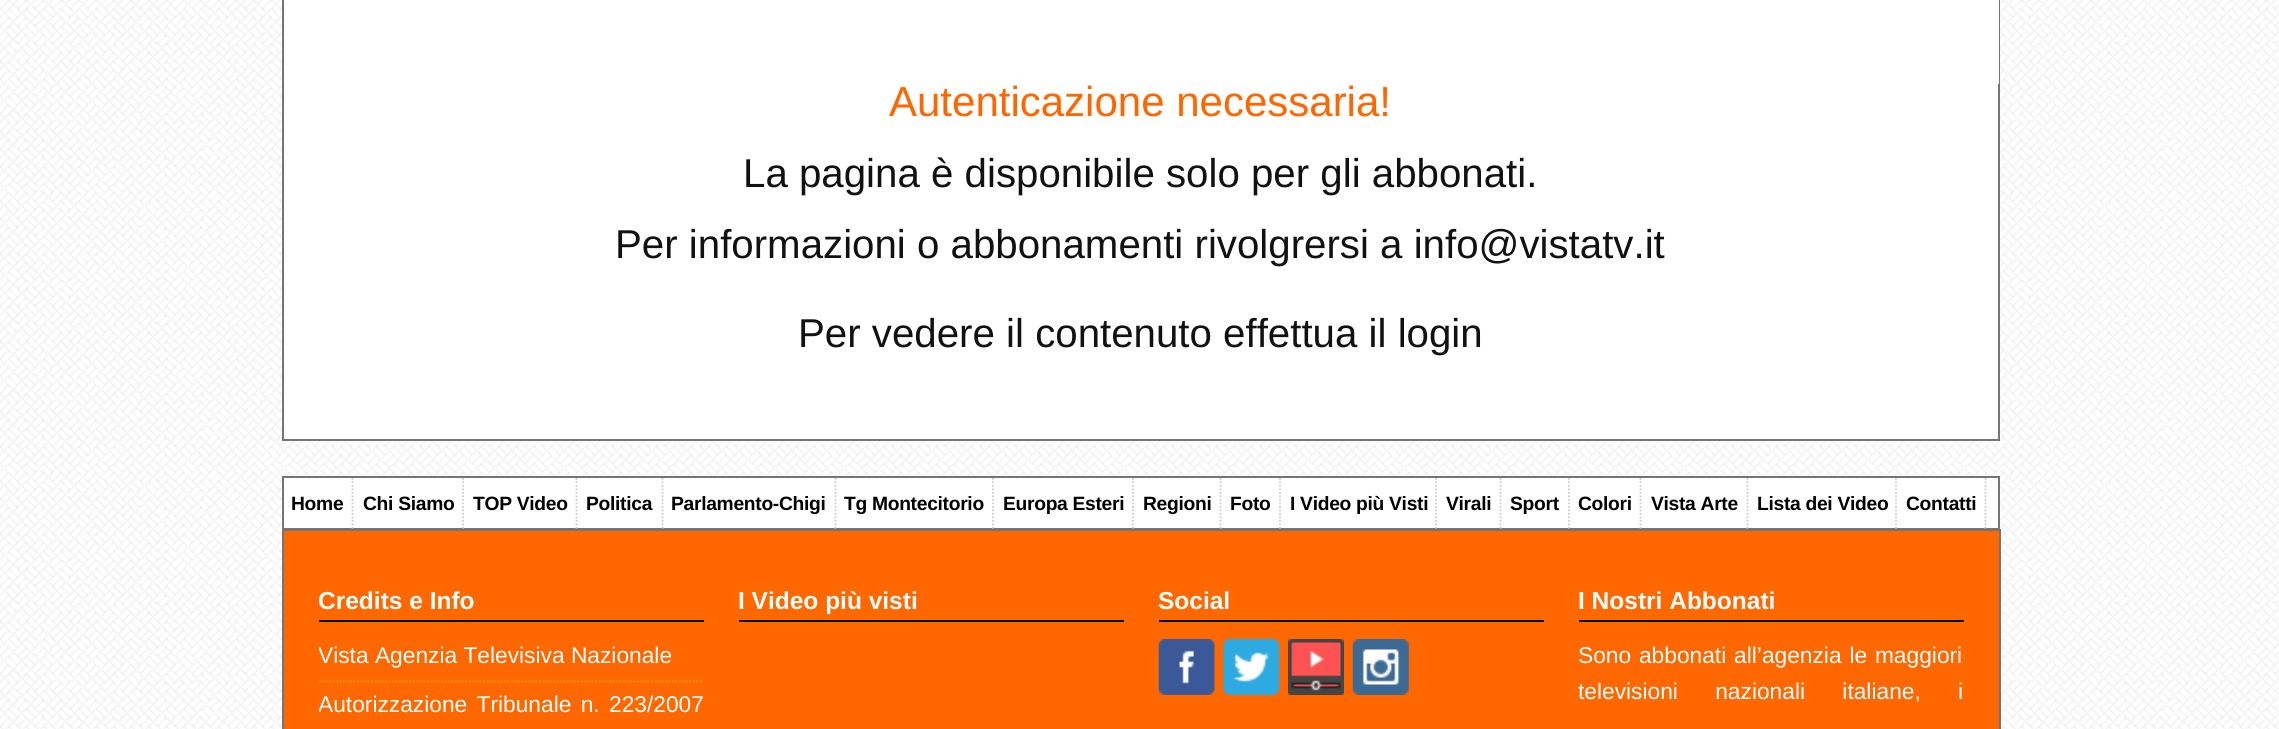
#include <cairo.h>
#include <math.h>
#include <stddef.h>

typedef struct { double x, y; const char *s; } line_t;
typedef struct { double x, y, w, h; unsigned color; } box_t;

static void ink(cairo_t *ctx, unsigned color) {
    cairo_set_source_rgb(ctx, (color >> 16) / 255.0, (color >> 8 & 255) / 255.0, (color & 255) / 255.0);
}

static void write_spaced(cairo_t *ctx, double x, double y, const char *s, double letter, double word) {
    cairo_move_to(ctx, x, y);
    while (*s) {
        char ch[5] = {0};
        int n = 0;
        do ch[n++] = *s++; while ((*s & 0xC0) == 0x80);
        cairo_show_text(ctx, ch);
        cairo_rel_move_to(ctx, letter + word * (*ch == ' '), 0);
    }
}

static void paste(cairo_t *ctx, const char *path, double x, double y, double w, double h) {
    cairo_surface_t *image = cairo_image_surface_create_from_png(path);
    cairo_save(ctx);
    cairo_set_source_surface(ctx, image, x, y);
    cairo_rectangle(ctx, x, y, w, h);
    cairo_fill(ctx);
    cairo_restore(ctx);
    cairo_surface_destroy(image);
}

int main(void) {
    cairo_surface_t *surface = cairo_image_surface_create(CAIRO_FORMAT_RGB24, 2279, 729);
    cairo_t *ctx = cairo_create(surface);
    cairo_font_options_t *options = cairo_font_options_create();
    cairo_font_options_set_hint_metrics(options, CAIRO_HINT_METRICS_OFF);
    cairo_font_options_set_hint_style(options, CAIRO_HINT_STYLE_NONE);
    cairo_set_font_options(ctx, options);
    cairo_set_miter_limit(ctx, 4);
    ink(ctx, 0xFFFFFF);
    cairo_paint(ctx);
    paste(ctx, "media/1.png", 0, 0, 2279, 729);
    ink(ctx, 0xFFFFFF);
    cairo_rectangle(ctx, 284, 84, 1714, 355);
    cairo_fill(ctx);
    cairo_rectangle(ctx, 283, -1, 1716, 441);
    ink(ctx, 0x757575);
    cairo_stroke(ctx);
    ink(ctx, 0xFFFFFF);
    cairo_rectangle(ctx, 284, 0, 1715, 84);
    cairo_fill(ctx);
    cairo_select_font_face(ctx, "Liberation Sans", CAIRO_FONT_SLANT_NORMAL, CAIRO_FONT_WEIGHT_NORMAL);
    cairo_set_font_size(ctx, 42);
    ink(ctx, 0xFF6600);
    cairo_move_to(ctx, 889, 116);
    cairo_show_text(ctx, "Autenticazione necessaria!");
    cairo_set_font_size(ctx, 40.25);
    ink(ctx, 0x111111);
    {
        static const line_t items[] = {
            {743, 187, "La pagina è disponibile solo per gli abbonati."},
            {615, 258, "Per informazioni o abbonamenti rivolgrersi a info@vistatv.it"},
            {798, 347, "Per vedere il contenuto effettua il login"},
        };
        for (size_t i = 0; i < sizeof items / sizeof *items; i++) {
            cairo_move_to(ctx, items[i].x, items[i].y);
            cairo_show_text(ctx, items[i].s);
        }
    }
    ink(ctx, 0xFFFFFF);
    cairo_rectangle(ctx, 283, 477, 1716, 52);
    cairo_fill_preserve(ctx);
    ink(ctx, 0x757575);
    cairo_stroke(ctx);
    cairo_new_path(ctx);
    cairo_move_to(ctx, 352.5, 478);
    cairo_line_to(ctx, 352.5, 528.5);
    ink(ctx, 0xCCCCCC);
    cairo_set_line_width(ctx, 1.8);
    cairo_set_dash(ctx, (double[]){1.75, 1.75}, 2, 0);
    cairo_stroke(ctx);
    cairo_select_font_face(ctx, "Liberation Sans", CAIRO_FONT_SLANT_NORMAL, CAIRO_FONT_WEIGHT_BOLD);
    cairo_set_font_size(ctx, 19.25);
    ink(ctx, 0x000000);
    write_spaced(ctx, 291, 510, "Home", -0.3, 0);
    cairo_new_path(ctx);
    cairo_move_to(ctx, 463, 478);
    cairo_line_to(ctx, 463, 528.5);
    ink(ctx, 0xCCCCCC);
    cairo_stroke(ctx);
    ink(ctx, 0x000000);
    write_spaced(ctx, 363, 510, "Chi Siamo", -0.3, 0);
    cairo_new_path(ctx);
    cairo_move_to(ctx, 576.5, 478);
    cairo_line_to(ctx, 576.5, 528.5);
    ink(ctx, 0xCCCCCC);
    cairo_stroke(ctx);
    ink(ctx, 0x000000);
    write_spaced(ctx, 473, 510, "TOP Video", -0.3, 0);
    cairo_new_path(ctx);
    cairo_move_to(ctx, 662.5, 478);
    cairo_line_to(ctx, 662.5, 528.5);
    ink(ctx, 0xCCCCCC);
    cairo_stroke(ctx);
    ink(ctx, 0x000000);
    write_spaced(ctx, 586, 510, "Politica", -0.3, 0);
    cairo_new_path(ctx);
    cairo_move_to(ctx, 835.5, 478);
    cairo_line_to(ctx, 835.5, 528.5);
    ink(ctx, 0xCCCCCC);
    cairo_stroke(ctx);
    ink(ctx, 0x000000);
    write_spaced(ctx, 671, 510, "Parlamento-Chigi", -0.3, 0);
    cairo_new_path(ctx);
    cairo_move_to(ctx, 993, 478);
    cairo_line_to(ctx, 993, 528.5);
    ink(ctx, 0xCCCCCC);
    cairo_stroke(ctx);
    ink(ctx, 0x000000);
    write_spaced(ctx, 844, 510, "Tg Montecitorio", -0.3, 0);
    cairo_new_path(ctx);
    cairo_move_to(ctx, 1133, 478);
    cairo_line_to(ctx, 1133, 528.5);
    ink(ctx, 0xCCCCCC);
    cairo_stroke(ctx);
    ink(ctx, 0x000000);
    write_spaced(ctx, 1003, 510, "Europa Esteri", -0.3, 0);
    cairo_new_path(ctx);
    cairo_move_to(ctx, 1220.5, 478);
    cairo_line_to(ctx, 1220.5, 528.5);
    ink(ctx, 0xCCCCCC);
    cairo_stroke(ctx);
    ink(ctx, 0x000000);
    write_spaced(ctx, 1143, 510, "Regioni", -0.3, 0);
    cairo_new_path(ctx);
    cairo_move_to(ctx, 1280, 478);
    cairo_line_to(ctx, 1280, 528.5);
    ink(ctx, 0xCCCCCC);
    cairo_stroke(ctx);
    ink(ctx, 0x000000);
    write_spaced(ctx, 1230, 510, "Foto", -0.3, 0);
    cairo_new_path(ctx);
    cairo_move_to(ctx, 1436, 478);
    cairo_line_to(ctx, 1436, 528.5);
    ink(ctx, 0xCCCCCC);
    cairo_stroke(ctx);
    ink(ctx, 0x000000);
    write_spaced(ctx, 1290, 510, "I Video più Visti", -0.3, 0);
    cairo_new_path(ctx);
    cairo_move_to(ctx, 1500.5, 478);
    cairo_line_to(ctx, 1500.5, 528.5);
    ink(ctx, 0xCCCCCC);
    cairo_stroke(ctx);
    ink(ctx, 0x000000);
    write_spaced(ctx, 1446, 510, "Virali", -0.3, 0);
    cairo_new_path(ctx);
    cairo_move_to(ctx, 1569, 478);
    cairo_line_to(ctx, 1569, 528.5);
    ink(ctx, 0xCCCCCC);
    cairo_stroke(ctx);
    ink(ctx, 0x000000);
    write_spaced(ctx, 1510, 510, "Sport", -0.3, 0);
    cairo_new_path(ctx);
    cairo_move_to(ctx, 1640.5, 478);
    cairo_line_to(ctx, 1640.5, 528.5);
    ink(ctx, 0xCCCCCC);
    cairo_stroke(ctx);
    ink(ctx, 0x000000);
    write_spaced(ctx, 1578, 510, "Colori", -0.3, 0);
    cairo_new_path(ctx);
    cairo_move_to(ctx, 1747.5, 478);
    cairo_line_to(ctx, 1747.5, 528.5);
    ink(ctx, 0xCCCCCC);
    cairo_stroke(ctx);
    ink(ctx, 0x000000);
    write_spaced(ctx, 1651, 510, "Vista Arte", -0.3, 0);
    cairo_new_path(ctx);
    cairo_move_to(ctx, 1896, 478);
    cairo_line_to(ctx, 1896, 528.5);
    ink(ctx, 0xCCCCCC);
    cairo_stroke(ctx);
    ink(ctx, 0x000000);
    write_spaced(ctx, 1757, 510, "Lista dei Video", -0.3, 0);
    cairo_new_path(ctx);
    cairo_move_to(ctx, 1985.5, 478);
    cairo_line_to(ctx, 1985.5, 528.5);
    ink(ctx, 0xCCCCCC);
    cairo_stroke(ctx);
    ink(ctx, 0x000000);
    write_spaced(ctx, 1906, 510, "Contatti", -0.3, 0);
    {
        static const box_t items[] = {
            {284, 531, 1715, 198, 0xFF6800},
            {282, 530, 1718, 1, 0x757575},
            {1999, 529, 2, 200, 0x757575},
            {282, 529, 2, 200, 0x757575},
            {319, 620, 385, 2, 0x000000},
        };
        for (size_t i = 0; i < sizeof items / sizeof *items; i++) {
            ink(ctx, items[i].color);
            cairo_rectangle(ctx, items[i].x, items[i].y, items[i].w, items[i].h);
            cairo_fill(ctx);
        }
    }
    cairo_save(ctx);
    cairo_rectangle(ctx, 319, 583, 1645, 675);
    cairo_clip(ctx);
    cairo_set_font_size(ctx, 24.5);
    ink(ctx, 0xFFFFFF);
    cairo_move_to(ctx, 318, 609);
    cairo_show_text(ctx, "Credits e Info");
    cairo_restore(ctx);
    cairo_save(ctx);
    cairo_rectangle(ctx, 319, 639, 385, 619);
    cairo_clip(ctx);
    cairo_new_path(ctx);
    cairo_move_to(ctx, 318.5, 681.5);
    cairo_line_to(ctx, 703.5, 681.5);
    ink(ctx, 0xFF9900);
    cairo_stroke(ctx);
    cairo_select_font_face(ctx, "Liberation Sans", CAIRO_FONT_SLANT_NORMAL, CAIRO_FONT_WEIGHT_NORMAL);
    cairo_set_font_size(ctx, 22.75);
    ink(ctx, 0xFFFFFF);
    cairo_move_to(ctx, 318, 663);
    cairo_show_text(ctx, "Vista Agenzia Televisiva Nazionale");
    write_spaced(ctx, 318, 712, "Autorizzazione Tribunale n. 223/2007", 0, 3);
    cairo_restore(ctx);
    cairo_rectangle(ctx, 739, 620, 385, 2);
    cairo_fill(ctx);
    cairo_set_font_size(ctx, 24.5);
    ink(ctx, 0xFFFFFF);
    cairo_move_to(ctx, 738, 609);
    cairo_show_text(ctx, "I Video più visti");
    ink(ctx, 0x000000);
    cairo_rectangle(ctx, 1159, 620, 385, 2);
    cairo_fill(ctx);
    ink(ctx, 0xFFFFFF);
    cairo_move_to(ctx, 1158, 609);
    cairo_show_text(ctx, "Social");
    paste(ctx, "media/2.png", 1158, 639, 57, 56);
    paste(ctx, "media/3.png", 1223, 639, 57, 56);
    paste(ctx, "media/4.png", 1288, 639, 56, 56);
    paste(ctx, "media/5.png", 1352, 639, 57, 56);
    ink(ctx, 0x000000);
    cairo_rectangle(ctx, 1579, 620, 385, 2);
    cairo_fill(ctx);
    ink(ctx, 0xFFFFFF);
    cairo_move_to(ctx, 1578, 609);
    cairo_show_text(ctx, "I Nostri Abbonati");
    cairo_select_font_face(ctx, "Liberation Sans", CAIRO_FONT_SLANT_NORMAL, CAIRO_FONT_WEIGHT_NORMAL);
    cairo_set_font_size(ctx, 22.75);
    write_spaced(ctx, 1578, 663, "Sono abbonati all’agenzia le maggiori", 0, 1.5);
    write_spaced(ctx, 1578, 699, "televisioni nazionali italiane, i", 0, 31);
    cairo_surface_write_to_png(surface, "image.png");
    cairo_font_options_destroy(options);
    cairo_destroy(ctx);
    cairo_surface_destroy(surface);
    return 0;
}
